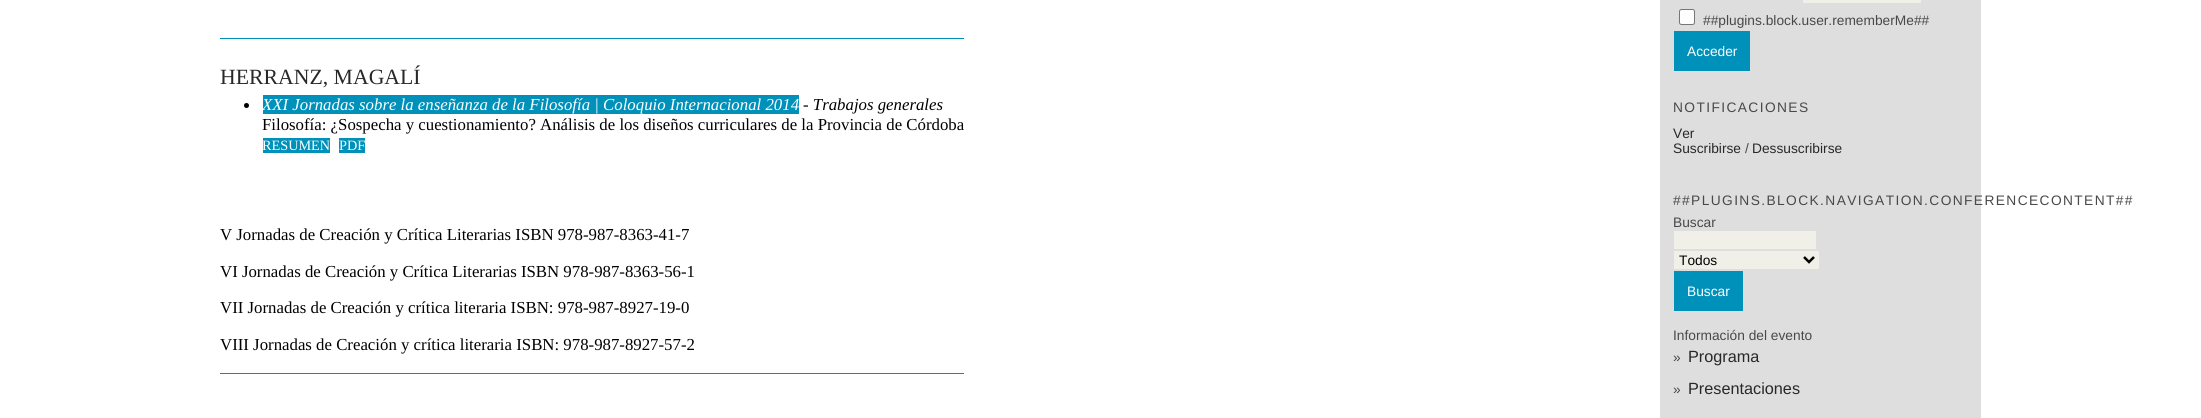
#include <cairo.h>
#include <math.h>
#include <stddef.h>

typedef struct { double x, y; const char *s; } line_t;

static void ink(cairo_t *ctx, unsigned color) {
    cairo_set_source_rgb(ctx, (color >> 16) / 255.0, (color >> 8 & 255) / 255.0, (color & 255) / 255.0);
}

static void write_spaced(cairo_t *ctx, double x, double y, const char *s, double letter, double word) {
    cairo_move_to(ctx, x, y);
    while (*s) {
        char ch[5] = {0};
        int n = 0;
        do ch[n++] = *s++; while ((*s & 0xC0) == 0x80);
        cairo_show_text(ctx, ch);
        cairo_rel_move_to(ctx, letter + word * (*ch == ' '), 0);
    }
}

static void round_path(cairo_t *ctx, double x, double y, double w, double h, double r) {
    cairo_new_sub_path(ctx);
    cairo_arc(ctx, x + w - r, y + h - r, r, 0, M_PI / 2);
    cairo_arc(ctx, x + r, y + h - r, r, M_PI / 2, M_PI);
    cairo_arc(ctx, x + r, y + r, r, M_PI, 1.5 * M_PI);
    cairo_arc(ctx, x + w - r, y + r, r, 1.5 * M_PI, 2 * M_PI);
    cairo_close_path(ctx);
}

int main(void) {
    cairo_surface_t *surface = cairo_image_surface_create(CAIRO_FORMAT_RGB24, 2201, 418);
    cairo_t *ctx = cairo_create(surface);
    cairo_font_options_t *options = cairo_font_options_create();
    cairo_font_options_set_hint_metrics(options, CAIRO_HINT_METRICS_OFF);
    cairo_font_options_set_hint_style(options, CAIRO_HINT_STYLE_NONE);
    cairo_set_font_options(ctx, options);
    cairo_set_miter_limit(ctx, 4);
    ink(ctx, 0xFFFFFF);
    cairo_paint(ctx);
    ink(ctx, 0x0091BB);
    cairo_rectangle(ctx, 220, 38, 744, 1);
    cairo_fill(ctx);
    cairo_rectangle(ctx, 220, 373, 744, 1);
    cairo_fill(ctx);
    cairo_select_font_face(ctx, "Liberation Serif", CAIRO_FONT_SLANT_NORMAL, CAIRO_FONT_WEIGHT_NORMAL);
    cairo_set_font_size(ctx, 21.75);
    ink(ctx, 0x282828);
    cairo_move_to(ctx, 220, 84);
    cairo_show_text(ctx, "HERRANZ, MAGALÍ");
    ink(ctx, 0x000000);
    cairo_new_path(ctx);
    cairo_arc(ctx, 246.5, 105.5, 2.5, 0, 2 * M_PI);
    cairo_fill(ctx);
    ink(ctx, 0x0091BB);
    cairo_rectangle(ctx, 263, 95, 536, 19);
    cairo_fill(ctx);
    cairo_select_font_face(ctx, "Liberation Serif", CAIRO_FONT_SLANT_ITALIC, CAIRO_FONT_WEIGHT_NORMAL);
    cairo_set_font_size(ctx, 16.8);
    ink(ctx, 0xFFFFFF);
    cairo_move_to(ctx, 262, 110);
    cairo_show_text(ctx, "XXI Jornadas sobre la enseñanza de la Filosofía | Coloquio Internacional 2014");
    ink(ctx, 0x000000);
    cairo_move_to(ctx, 803, 110);
    cairo_show_text(ctx, "- Trabajos generales");
    cairo_select_font_face(ctx, "Liberation Serif", CAIRO_FONT_SLANT_NORMAL, CAIRO_FONT_WEIGHT_NORMAL);
    cairo_move_to(ctx, 262, 130);
    cairo_show_text(ctx, "Filosofía: ¿Sospecha y cuestionamiento? Análisis de los diseños curriculares de la Provincia de Córdoba");
    ink(ctx, 0x0091BB);
    cairo_rectangle(ctx, 263, 138, 67, 15);
    cairo_fill(ctx);
    cairo_set_font_size(ctx, 14.25);
    ink(ctx, 0xFFFFFF);
    cairo_move_to(ctx, 262, 150);
    cairo_show_text(ctx, "RESUMEN");
    ink(ctx, 0x0091BB);
    cairo_rectangle(ctx, 339, 138, 26, 15);
    cairo_fill(ctx);
    ink(ctx, 0xFFFFFF);
    cairo_move_to(ctx, 339, 150);
    cairo_show_text(ctx, "PDF");
    cairo_set_font_size(ctx, 16.8);
    ink(ctx, 0x000000);
    {
        static const line_t items[] = {
            {220, 240, "V Jornadas de Creación y Crítica Literarias ISBN 978-987-8363-41-7"},
            {220, 277, "VI Jornadas de Creación y Crítica Literarias ISBN 978-987-8363-56-1"},
            {220, 313, "VII Jornadas de Creación y crítica literaria ISBN: 978-987-8927-19-0"},
            {220, 350, "VIII Jornadas de Creación y crítica literaria ISBN: 978-987-8927-57-2"},
        };
        for (size_t i = 0; i < sizeof items / sizeof *items; i++) {
            cairo_move_to(ctx, items[i].x, items[i].y);
            cairo_show_text(ctx, items[i].s);
        }
    }
    ink(ctx, 0xDEDEDE);
    cairo_rectangle(ctx, 1660, 0, 321, 418);
    cairo_fill(ctx);
    ink(ctx, 0xF0F0E8);
    cairo_rectangle(ctx, 1803, 0, 118, 3);
    cairo_fill(ctx);
    ink(ctx, 0xFFFFFF);
    round_path(ctx, 1679.5, 9.5, 15, 15, 2);
    cairo_fill_preserve(ctx);
    ink(ctx, 0x767676);
    cairo_set_line_width(ctx, 1);
    cairo_stroke(ctx);
    cairo_select_font_face(ctx, "Liberation Sans", CAIRO_FONT_SLANT_NORMAL, CAIRO_FONT_WEIGHT_NORMAL);
    cairo_set_font_size(ctx, 13.75);
    ink(ctx, 0x494949);
    cairo_move_to(ctx, 1703, 25);
    cairo_show_text(ctx, "##plugins.block.user.rememberMe##");
    ink(ctx, 0x0091BB);
    cairo_rectangle(ctx, 1674, 31, 76, 40);
    cairo_fill(ctx);
    ink(ctx, 0xFFFFFF);
    cairo_move_to(ctx, 1687, 56);
    cairo_show_text(ctx, "Acceder");
    ink(ctx, 0x494949);
    write_spaced(ctx, 1673, 112, "NOTIFICACIONES", 1.4, 0);
    ink(ctx, 0x282828);
    cairo_move_to(ctx, 1673, 138);
    cairo_show_text(ctx, "Ver");
    cairo_move_to(ctx, 1673, 153);
    cairo_show_text(ctx, "Suscribirse");
    ink(ctx, 0x494949);
    cairo_move_to(ctx, 1745, 153);
    cairo_show_text(ctx, "/");
    ink(ctx, 0x282828);
    cairo_move_to(ctx, 1752, 153);
    cairo_show_text(ctx, "Dessuscribirse");
    ink(ctx, 0x494949);
    write_spaced(ctx, 1673, 205, "##PLUGINS.BLOCK.NAVIGATION.CONFERENCECONTENT##", 1.4, 0);
    cairo_move_to(ctx, 1673, 227);
    cairo_show_text(ctx, "Buscar");
    ink(ctx, 0xF0F0E8);
    cairo_rectangle(ctx, 1674, 231, 142, 18);
    cairo_fill(ctx);
    cairo_rectangle(ctx, 1674, 251, 145, 18);
    cairo_fill(ctx);
    cairo_new_path(ctx);
    cairo_move_to(ctx, 1804, 257);
    cairo_line_to(ctx, 1809, 262);
    cairo_line_to(ctx, 1814, 257);
    ink(ctx, 0x000000);
    cairo_set_line_width(ctx, 2.5);
    cairo_stroke(ctx);
    cairo_move_to(ctx, 1679, 265);
    cairo_show_text(ctx, "Todos");
    ink(ctx, 0x0091BB);
    cairo_rectangle(ctx, 1674, 271, 69, 40);
    cairo_fill(ctx);
    ink(ctx, 0xFFFFFF);
    cairo_move_to(ctx, 1687, 296);
    cairo_show_text(ctx, "Buscar");
    ink(ctx, 0x494949);
    cairo_move_to(ctx, 1673, 340);
    cairo_show_text(ctx, "Información del evento");
    cairo_move_to(ctx, 1673, 362);
    cairo_show_text(ctx, "»");
    cairo_set_font_size(ctx, 16.25);
    ink(ctx, 0x282828);
    cairo_move_to(ctx, 1688, 362);
    cairo_show_text(ctx, "Programa");
    cairo_set_font_size(ctx, 13.75);
    ink(ctx, 0x494949);
    cairo_move_to(ctx, 1673, 394);
    cairo_show_text(ctx, "»");
    cairo_set_font_size(ctx, 16.25);
    ink(ctx, 0x282828);
    cairo_move_to(ctx, 1688, 394);
    cairo_show_text(ctx, "Presentaciones");
    cairo_surface_write_to_png(surface, "image.png");
    cairo_font_options_destroy(options);
    cairo_destroy(ctx);
    cairo_surface_destroy(surface);
    return 0;
}
